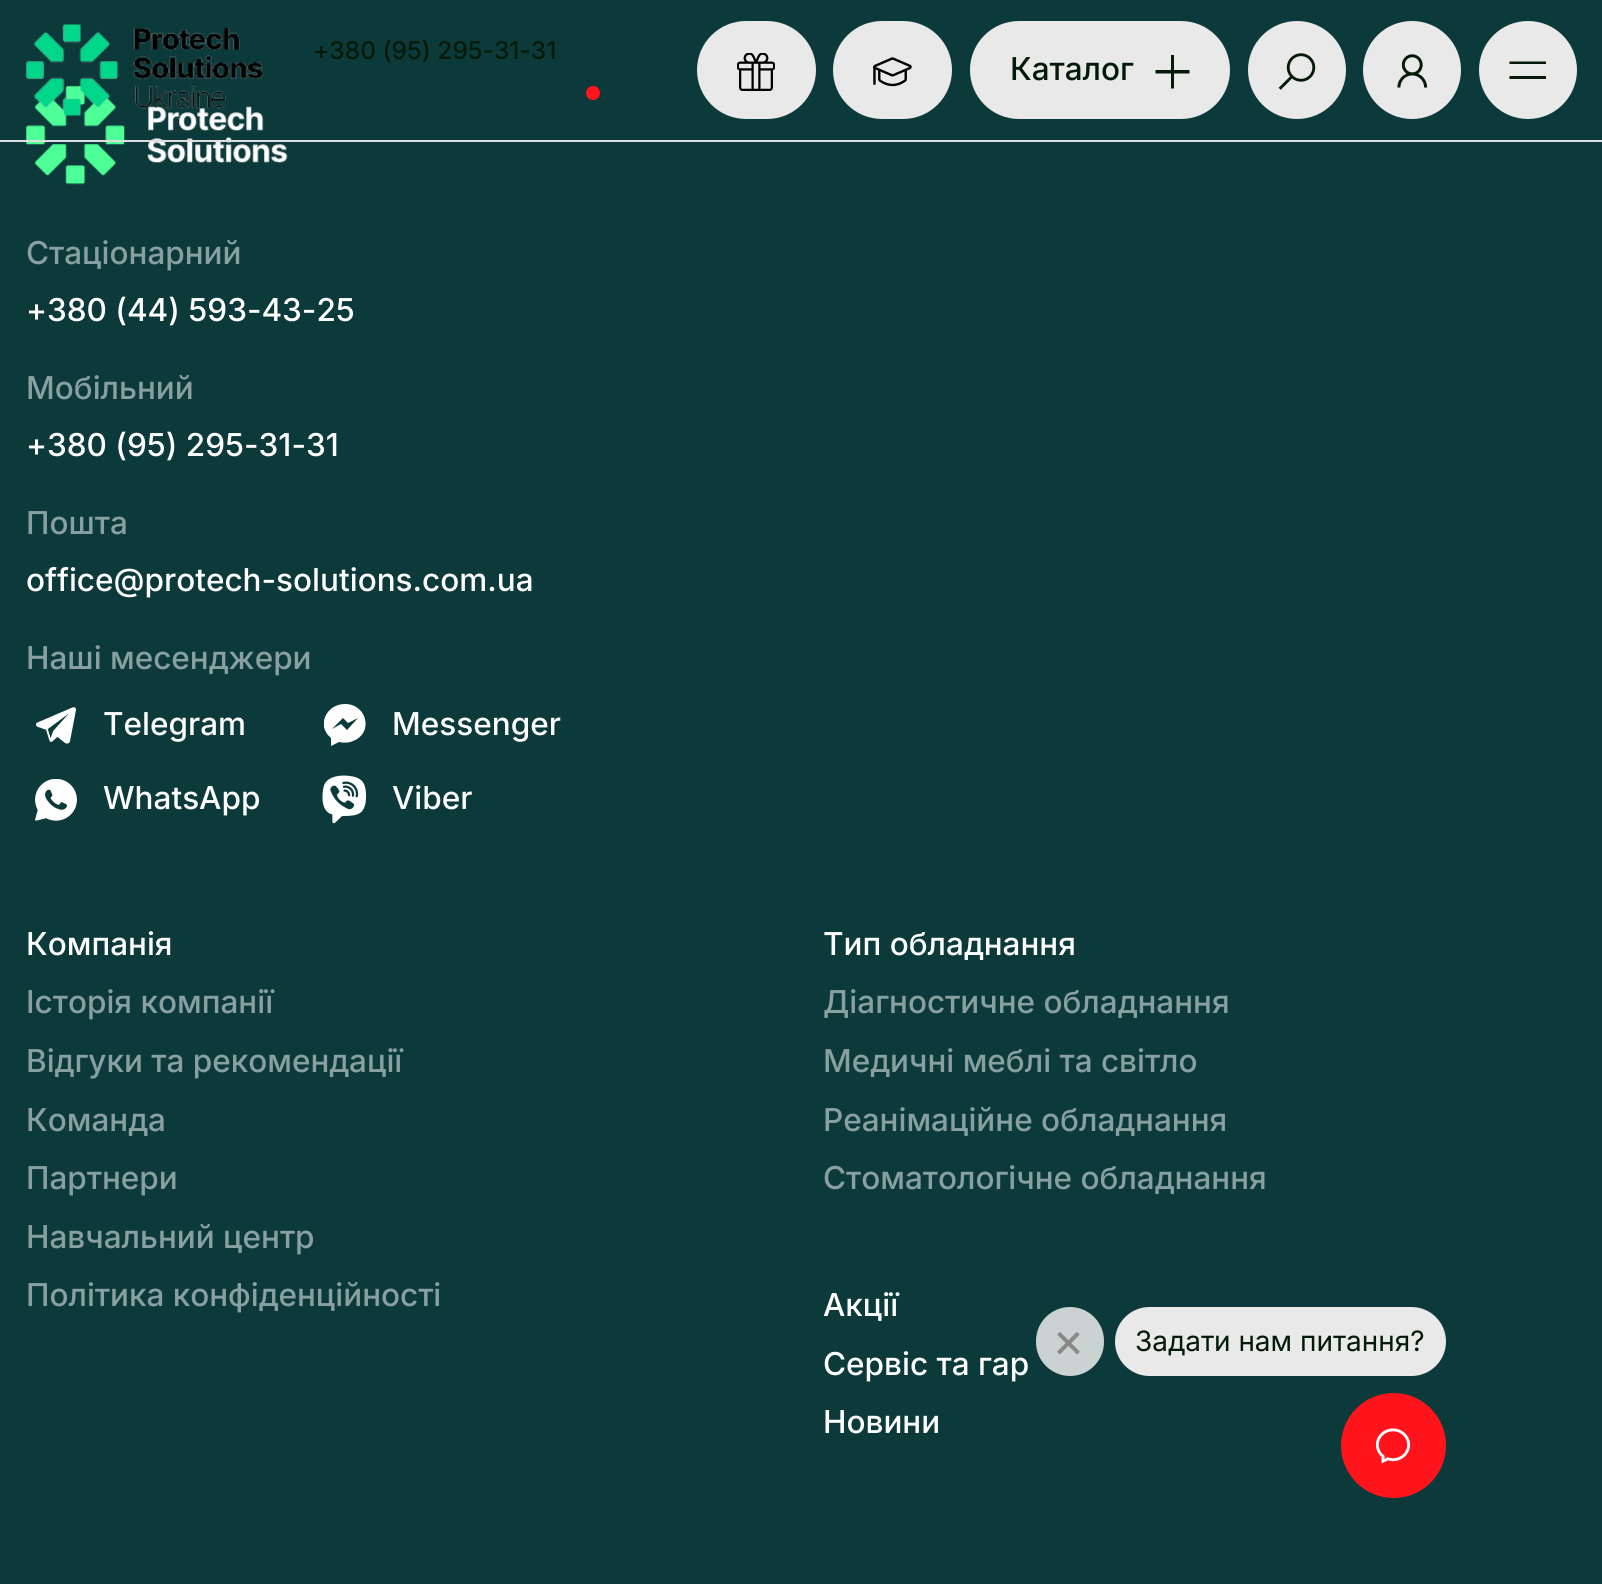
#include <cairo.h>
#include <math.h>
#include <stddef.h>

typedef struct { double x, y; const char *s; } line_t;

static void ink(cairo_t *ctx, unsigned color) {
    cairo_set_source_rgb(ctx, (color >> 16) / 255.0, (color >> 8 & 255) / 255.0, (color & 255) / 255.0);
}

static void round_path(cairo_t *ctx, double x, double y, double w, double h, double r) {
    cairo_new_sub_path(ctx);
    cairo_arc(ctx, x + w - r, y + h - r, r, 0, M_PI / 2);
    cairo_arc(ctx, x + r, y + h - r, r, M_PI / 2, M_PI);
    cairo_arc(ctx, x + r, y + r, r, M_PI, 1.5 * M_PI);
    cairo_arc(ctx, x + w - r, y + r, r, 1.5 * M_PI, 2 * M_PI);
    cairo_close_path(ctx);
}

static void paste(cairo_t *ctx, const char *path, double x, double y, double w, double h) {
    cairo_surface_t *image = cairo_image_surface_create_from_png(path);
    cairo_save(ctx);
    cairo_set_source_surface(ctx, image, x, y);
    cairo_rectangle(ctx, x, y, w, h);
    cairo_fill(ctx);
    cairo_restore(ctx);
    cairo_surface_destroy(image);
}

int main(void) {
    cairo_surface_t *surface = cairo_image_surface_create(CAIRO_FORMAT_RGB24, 1602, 1584);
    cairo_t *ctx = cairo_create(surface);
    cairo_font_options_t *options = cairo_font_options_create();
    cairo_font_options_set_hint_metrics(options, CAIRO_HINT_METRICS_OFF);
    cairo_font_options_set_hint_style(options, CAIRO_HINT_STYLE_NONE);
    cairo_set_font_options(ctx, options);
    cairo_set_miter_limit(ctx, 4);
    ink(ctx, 0x0C3A3B);
    cairo_paint(ctx);
    paste(ctx, "media/8.png", 26, 85, 262, 100);
    ink(ctx, 0xDFDFE2);
    cairo_rectangle(ctx, 0, 140, 1602, 2);
    cairo_fill(ctx);
    paste(ctx, "media/1.png", 26, 24, 238, 92);
    cairo_select_font_face(ctx, "Inter Medium", CAIRO_FONT_SLANT_NORMAL, CAIRO_FONT_WEIGHT_NORMAL);
    cairo_set_font_size(ctx, 24.5);
    ink(ctx, 0x021A07);
    cairo_move_to(ctx, 313, 59);
    cairo_show_text(ctx, "+380 (95) 295-31-31");
    ink(ctx, 0xFF141C);
    cairo_new_path(ctx);
    cairo_arc(ctx, 593, 93, 7, 0, 2 * M_PI);
    cairo_fill(ctx);
    ink(ctx, 0xE9E9E9);
    round_path(ctx, 697, 21, 119, 98, 49);
    cairo_fill(ctx);
    paste(ctx, "media/2.png", 737, 53, 38, 38);
    round_path(ctx, 833, 21, 119, 98, 49);
    cairo_fill(ctx);
    paste(ctx, "media/3.png", 873, 57, 39, 30);
    round_path(ctx, 970, 21, 260, 98, 49);
    cairo_fill(ctx);
    cairo_set_font_size(ctx, 31.5);
    ink(ctx, 0x021A07);
    cairo_move_to(ctx, 1010, 80);
    cairo_show_text(ctx, "Каталог");
    cairo_new_path(ctx);
    cairo_move_to(ctx, 1171, 55);
    cairo_line_to(ctx, 1171, 70);
    cairo_line_to(ctx, 1155.5, 70);
    cairo_line_to(ctx, 1155.5, 73.5);
    cairo_line_to(ctx, 1171, 73.5);
    cairo_line_to(ctx, 1171, 88.5);
    cairo_line_to(ctx, 1174, 88.5);
    cairo_line_to(ctx, 1174, 73.5);
    cairo_line_to(ctx, 1189.5, 73.5);
    cairo_line_to(ctx, 1189.5, 70);
    cairo_line_to(ctx, 1174, 70);
    cairo_line_to(ctx, 1174, 55);
    cairo_close_path(ctx);
    cairo_fill(ctx);
    ink(ctx, 0xE9E9E9);
    cairo_arc(ctx, 1297, 70, 49, 0, 2 * M_PI);
    cairo_fill(ctx);
    paste(ctx, "media/4.png", 1278, 53, 38, 37);
    cairo_arc(ctx, 1412, 70, 49, 0, 2 * M_PI);
    cairo_fill(ctx);
    paste(ctx, "media/5.png", 1397, 54, 31, 34);
    cairo_arc(ctx, 1528, 70, 49, 0, 2 * M_PI);
    cairo_fill(ctx);
    ink(ctx, 0x021A07);
    cairo_new_path(ctx);
    cairo_move_to(ctx, 1509.5, 61.5);
    cairo_line_to(ctx, 1509.5, 64);
    cairo_line_to(ctx, 1546, 64);
    cairo_line_to(ctx, 1546, 61.5);
    cairo_close_path(ctx);
    cairo_move_to(ctx, 1509.5, 76);
    cairo_line_to(ctx, 1509.5, 79);
    cairo_line_to(ctx, 1546, 79);
    cairo_line_to(ctx, 1546, 76);
    cairo_close_path(ctx);
    cairo_fill(ctx);
    cairo_set_source_rgba(ctx, 0.878, 0.894, 0.886, 0.9);
    round_path(ctx, 1036, 1307, 68, 69, 34);
    cairo_fill(ctx);
    paste(ctx, "media/6.png", 1057, 1332, 23, 23);
    ink(ctx, 0xE9E9E9);
    round_path(ctx, 1115, 1307, 331, 69, 34.5);
    cairo_fill(ctx);
    cairo_select_font_face(ctx, "Inter", CAIRO_FONT_SLANT_NORMAL, CAIRO_FONT_WEIGHT_NORMAL);
    cairo_set_font_size(ctx, 28);
    ink(ctx, 0x021A07);
    cairo_move_to(ctx, 1135, 1351);
    cairo_show_text(ctx, "Задати нам питання?");
    ink(ctx, 0xFF141C);
    cairo_new_path(ctx);
    cairo_arc(ctx, 1393.5, 1445.5, 52.5, 0, 2 * M_PI);
    cairo_fill(ctx);
    paste(ctx, "media/7.png", 1375, 1428, 36, 36);
    cairo_select_font_face(ctx, "Inter Medium", CAIRO_FONT_SLANT_NORMAL, CAIRO_FONT_WEIGHT_NORMAL);
    cairo_set_font_size(ctx, 31.5);
    ink(ctx, 0x88A09F);
    cairo_move_to(ctx, 26, 264);
    cairo_show_text(ctx, "Стаціонарний");
    ink(ctx, 0xFFFFFF);
    cairo_move_to(ctx, 26, 321);
    cairo_show_text(ctx, "+380 (44) 593-43-25");
    ink(ctx, 0x88A09F);
    cairo_move_to(ctx, 26, 399);
    cairo_show_text(ctx, "Мобільний");
    ink(ctx, 0xFFFFFF);
    cairo_move_to(ctx, 26, 456);
    cairo_show_text(ctx, "+380 (95) 295-31-31");
    ink(ctx, 0x88A09F);
    cairo_move_to(ctx, 26, 534);
    cairo_show_text(ctx, "Пошта");
    ink(ctx, 0xFFFFFF);
    cairo_move_to(ctx, 26, 591);
    cairo_show_text(ctx, "office@protech-solutions.com.ua");
    ink(ctx, 0x88A09F);
    cairo_move_to(ctx, 26, 669);
    cairo_show_text(ctx, "Наші месенджери");
    paste(ctx, "media/9.png", 36, 707, 40, 37);
    ink(ctx, 0xFFFFFF);
    cairo_move_to(ctx, 103, 735);
    cairo_show_text(ctx, "Telegram");
    cairo_save(ctx);
    cairo_rectangle(ctx, 324, 704, 42, 43);
    cairo_clip(ctx);
    cairo_new_path(ctx);
    cairo_move_to(ctx, 345, 704);
    cairo_curve_to(ctx, 326, 704, 316, 726, 331, 738);
    cairo_line_to(ctx, 331, 746);
    cairo_line_to(ctx, 339, 742);
    cairo_curve_to(ctx, 343, 743, 349, 743, 353, 741);
    cairo_curve_to(ctx, 374, 733, 367, 704, 345, 704);
    cairo_close_path(ctx);
    cairo_move_to(ctx, 347, 730);
    cairo_line_to(ctx, 341, 724);
    cairo_line_to(ctx, 332, 729);
    cairo_line_to(ctx, 343, 718);
    cairo_line_to(ctx, 348, 723);
    cairo_line_to(ctx, 358, 718);
    cairo_close_path(ctx);
    cairo_fill(ctx);
    cairo_restore(ctx);
    cairo_move_to(ctx, 392, 735);
    cairo_show_text(ctx, "Messenger");
    paste(ctx, "media/10.png", 35, 779, 42, 42);
    cairo_move_to(ctx, 103, 809);
    cairo_show_text(ctx, "WhatsApp");
    paste(ctx, "media/11.png", 322, 775, 45, 49);
    cairo_move_to(ctx, 392, 809);
    cairo_show_text(ctx, "Viber");
    cairo_move_to(ctx, 26, 955);
    cairo_show_text(ctx, "Компанія");
    ink(ctx, 0x88A09F);
    {
        static const line_t items[] = {
            {26, 1013, "Історія компанії"},
            {26, 1072, "Відгуки та рекомендації"},
            {26, 1131, "Команда"},
            {26, 1189, "Партнери"},
            {26, 1248, "Навчальний центр"},
            {26, 1306, "Політика конфіденційності"},
        };
        for (size_t i = 0; i < sizeof items / sizeof *items; i++) {
            cairo_move_to(ctx, items[i].x, items[i].y);
            cairo_show_text(ctx, items[i].s);
        }
    }
    ink(ctx, 0xFFFFFF);
    cairo_move_to(ctx, 823, 955);
    cairo_show_text(ctx, "Тип обладнання");
    ink(ctx, 0x88A09F);
    {
        static const line_t items[] = {
            {823, 1013, "Діагностичне обладнання"},
            {823, 1072, "Медичні меблі та світло"},
            {823, 1131, "Реанімаційне обладнання"},
            {823, 1189, "Стоматологічне обладнання"},
        };
        for (size_t i = 0; i < sizeof items / sizeof *items; i++) {
            cairo_move_to(ctx, items[i].x, items[i].y);
            cairo_show_text(ctx, items[i].s);
        }
    }
    ink(ctx, 0xFFFFFF);
    {
        static const line_t items[] = {
            {823, 1316, "Акції"},
            {823, 1375, "Сервіс та гар"},
            {823, 1433, "Новини"},
        };
        for (size_t i = 0; i < sizeof items / sizeof *items; i++) {
            cairo_move_to(ctx, items[i].x, items[i].y);
            cairo_show_text(ctx, items[i].s);
        }
    }
    cairo_surface_write_to_png(surface, "image.png");
    cairo_font_options_destroy(options);
    cairo_destroy(ctx);
    cairo_surface_destroy(surface);
    return 0;
}
